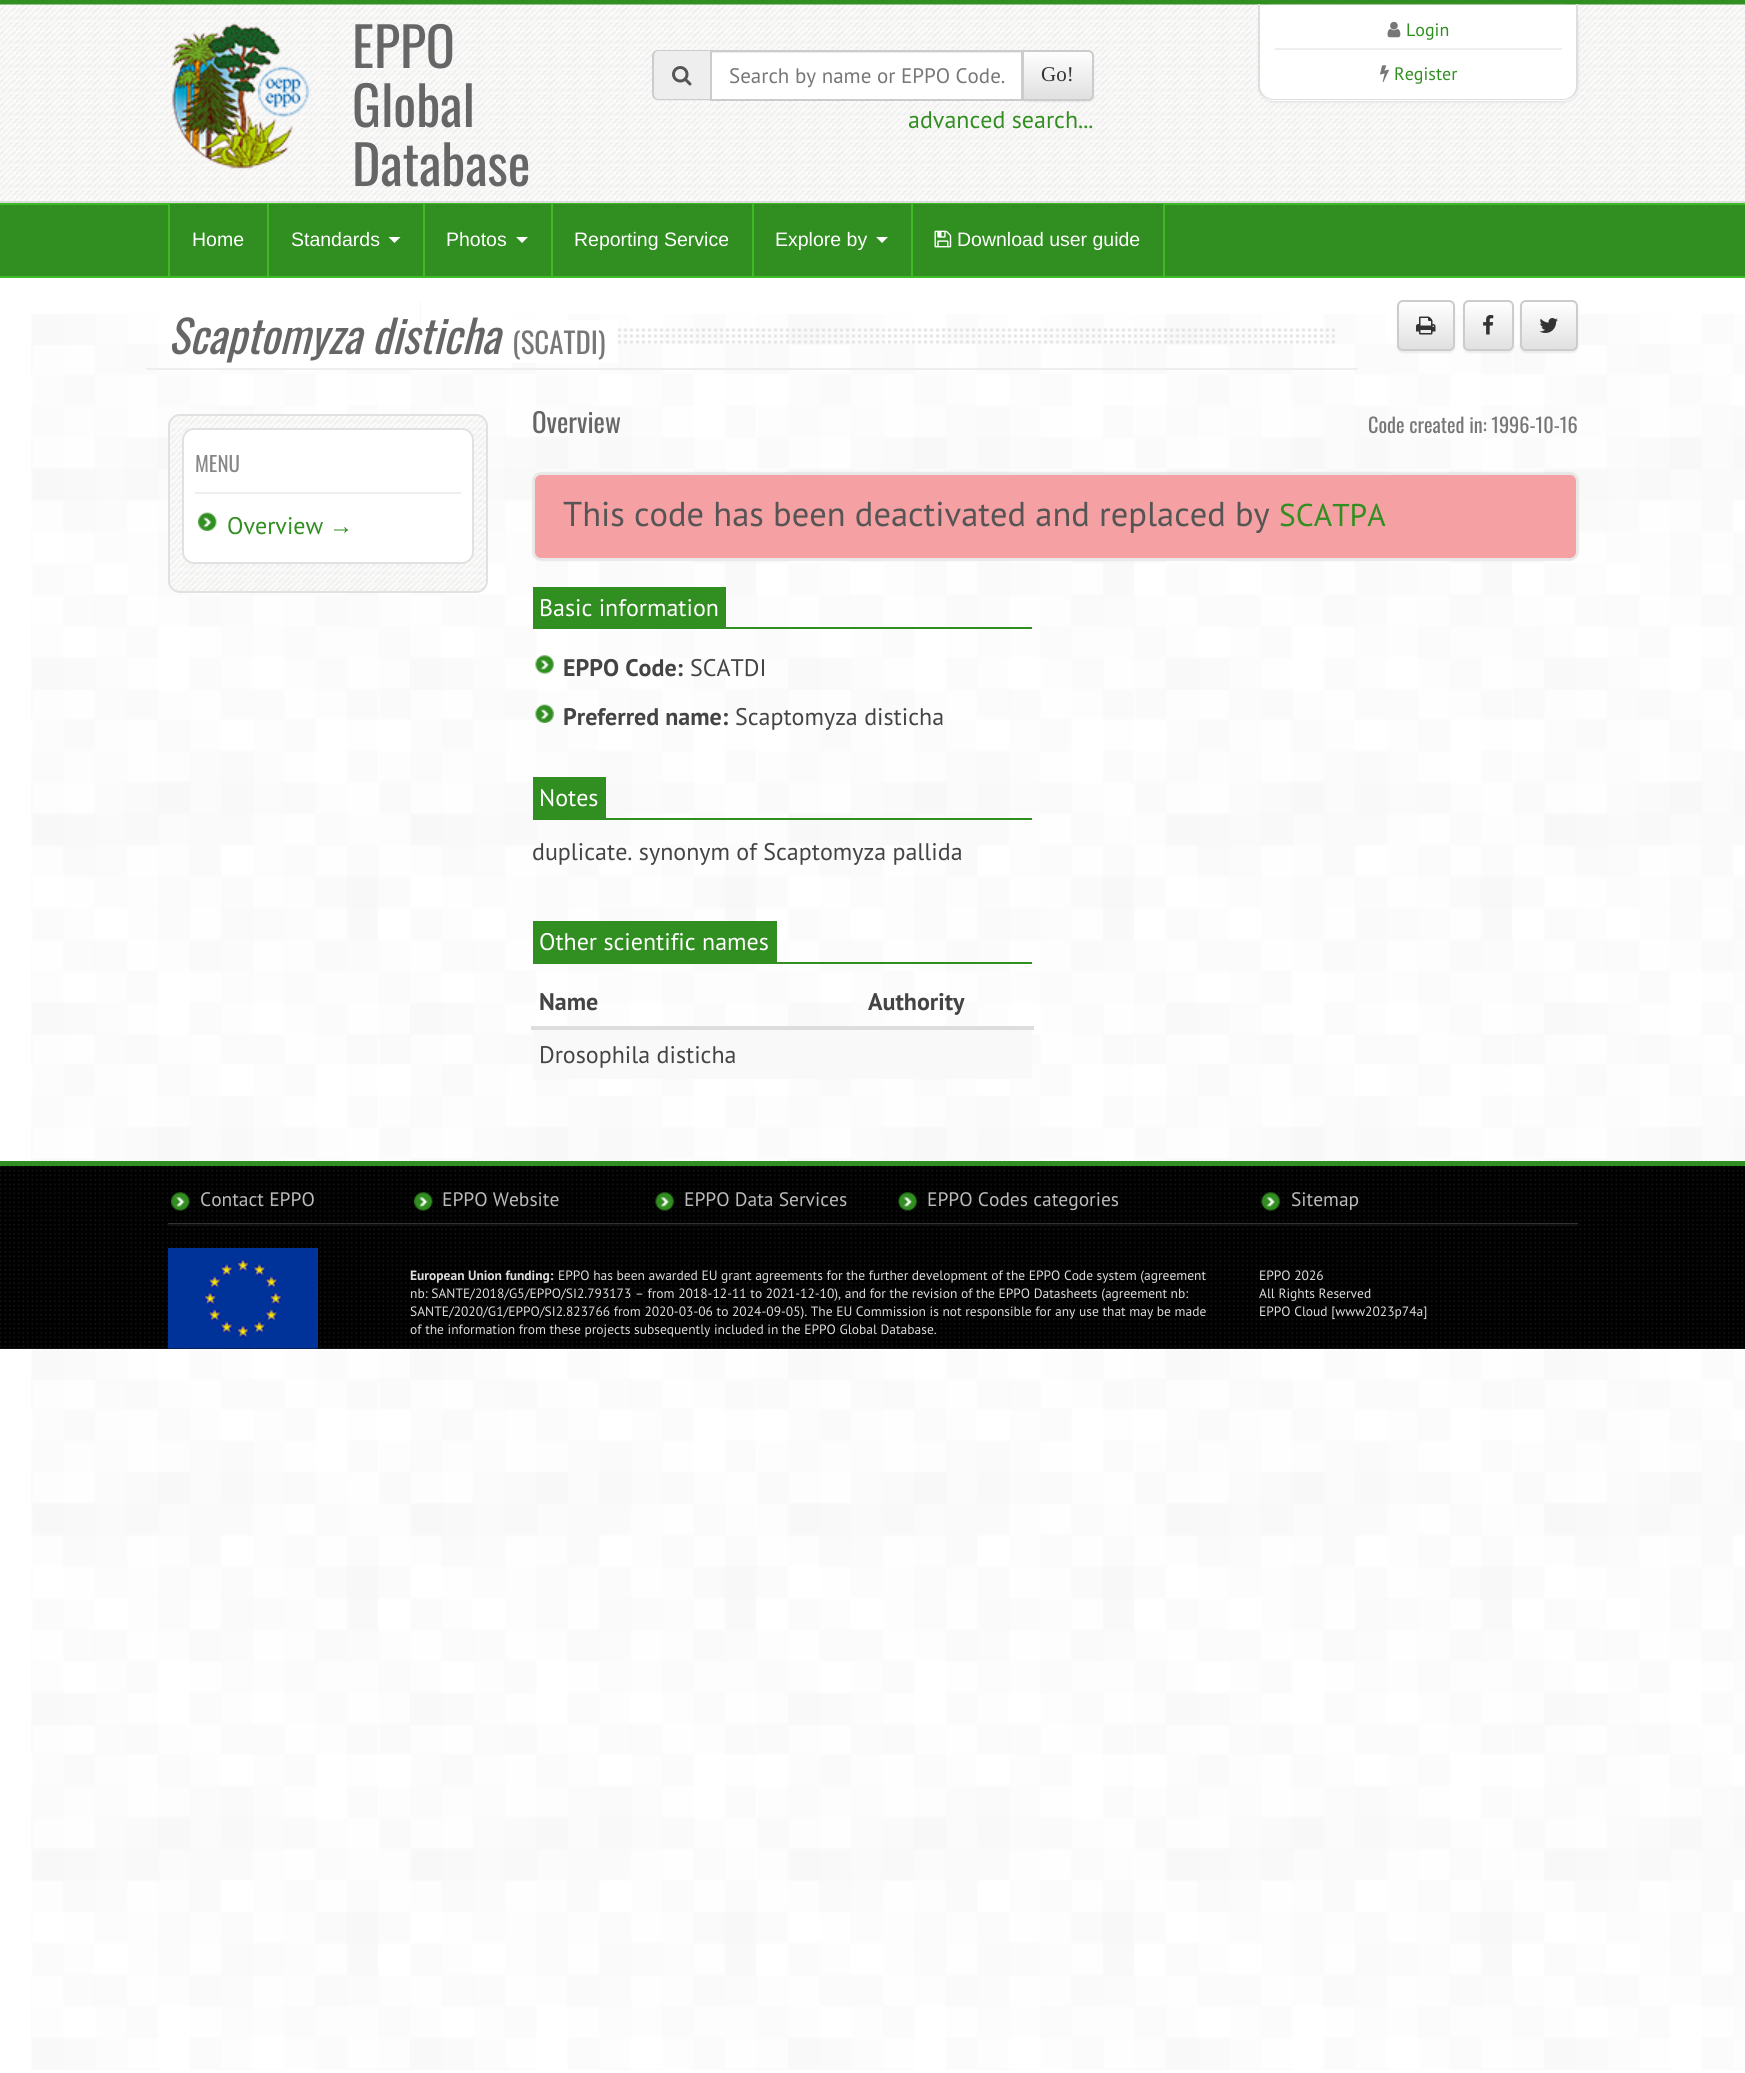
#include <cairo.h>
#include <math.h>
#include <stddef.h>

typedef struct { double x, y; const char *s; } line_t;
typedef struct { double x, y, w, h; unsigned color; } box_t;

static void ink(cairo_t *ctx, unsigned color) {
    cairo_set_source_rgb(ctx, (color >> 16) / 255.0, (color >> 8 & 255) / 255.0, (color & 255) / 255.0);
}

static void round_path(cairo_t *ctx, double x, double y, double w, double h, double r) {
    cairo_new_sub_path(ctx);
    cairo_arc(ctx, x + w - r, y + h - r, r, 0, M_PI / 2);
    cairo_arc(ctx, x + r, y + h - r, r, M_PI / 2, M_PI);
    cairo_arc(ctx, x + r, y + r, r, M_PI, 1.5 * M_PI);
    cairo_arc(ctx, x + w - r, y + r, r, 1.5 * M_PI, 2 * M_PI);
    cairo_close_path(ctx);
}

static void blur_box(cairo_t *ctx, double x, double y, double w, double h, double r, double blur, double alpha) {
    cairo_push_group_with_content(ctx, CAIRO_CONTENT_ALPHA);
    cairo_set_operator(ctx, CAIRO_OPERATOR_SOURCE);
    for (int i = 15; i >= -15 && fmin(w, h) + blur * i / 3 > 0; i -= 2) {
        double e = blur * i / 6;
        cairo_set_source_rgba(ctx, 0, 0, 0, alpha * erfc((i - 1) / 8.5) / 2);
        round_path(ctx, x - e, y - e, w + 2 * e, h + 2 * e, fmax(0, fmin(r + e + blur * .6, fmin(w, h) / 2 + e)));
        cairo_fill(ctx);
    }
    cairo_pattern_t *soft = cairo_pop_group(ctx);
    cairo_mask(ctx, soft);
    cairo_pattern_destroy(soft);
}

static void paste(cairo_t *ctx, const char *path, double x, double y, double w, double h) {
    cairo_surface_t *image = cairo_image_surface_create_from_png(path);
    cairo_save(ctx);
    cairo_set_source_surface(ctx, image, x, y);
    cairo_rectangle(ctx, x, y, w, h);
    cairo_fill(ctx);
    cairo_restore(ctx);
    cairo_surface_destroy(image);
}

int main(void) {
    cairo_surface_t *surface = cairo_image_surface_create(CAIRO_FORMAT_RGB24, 1745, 2073);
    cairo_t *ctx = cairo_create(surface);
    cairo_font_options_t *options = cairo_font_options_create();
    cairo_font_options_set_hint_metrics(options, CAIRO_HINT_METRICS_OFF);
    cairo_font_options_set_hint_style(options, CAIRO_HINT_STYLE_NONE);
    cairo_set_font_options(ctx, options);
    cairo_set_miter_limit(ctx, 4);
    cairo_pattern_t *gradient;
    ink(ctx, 0xFFFFFF);
    cairo_paint(ctx);
    paste(ctx, "media/1.png", 31, 314, 1714, 1756);
    ink(ctx, 0x318E20);
    cairo_rectangle(ctx, 0, 0, 1745, 5);
    cairo_fill(ctx);
    paste(ctx, "media/2.png", 0, 4, 1745, 197);
    ink(ctx, 0xDDDDDD);
    cairo_rectangle(ctx, 0, 201, 1745, 2);
    cairo_fill(ctx);
    paste(ctx, "media/3.png", 172, 23, 138, 146);
    cairo_select_font_face(ctx, "Oswald", CAIRO_FONT_SLANT_NORMAL, CAIRO_FONT_WEIGHT_NORMAL);
    cairo_set_font_size(ctx, 54);
    ink(ctx, 0x666666);
    {
        static const line_t items[] = {
            {352, 68, "EPPO"},
            {352, 127, "Global"},
            {352, 186, "Database"},
        };
        for (size_t i = 0; i < sizeof items / sizeof *items; i++) {
            cairo_move_to(ctx, items[i].x, items[i].y);
            cairo_show_text(ctx, items[i].s);
        }
    }
    ink(ctx, 0xDDDDDD);
    blur_box(ctx, 1259, 6, 319, 96, 15, 1.5, 1);
    ink(ctx, 0xFFFFFF);
    cairo_new_path(ctx);
    cairo_move_to(ctx, 1259, 5);
    cairo_line_to(ctx, 1578, 5);
    cairo_line_to(ctx, 1578, 86);
    cairo_curve_to(ctx, 1578, 94.5, 1571.5, 101, 1563, 101);
    cairo_line_to(ctx, 1274, 101);
    cairo_curve_to(ctx, 1265.5, 101, 1259, 94.5, 1259, 86);
    cairo_close_path(ctx);
    cairo_fill(ctx);
    ink(ctx, 0xDDDDDD);
    cairo_set_fill_rule(ctx, CAIRO_FILL_RULE_EVEN_ODD);
    cairo_new_path(ctx);
    cairo_move_to(ctx, 1258, 4);
    cairo_line_to(ctx, 1578, 4);
    cairo_line_to(ctx, 1578, 86);
    cairo_curve_to(ctx, 1578, 94, 1571, 100, 1563, 100);
    cairo_line_to(ctx, 1274, 100);
    cairo_curve_to(ctx, 1265, 100, 1258, 94, 1258, 86);
    cairo_close_path(ctx);
    cairo_move_to(ctx, 1260, 4);
    cairo_line_to(ctx, 1576, 4);
    cairo_line_to(ctx, 1576, 86);
    cairo_curve_to(ctx, 1576, 93, 1570, 99, 1563, 99);
    cairo_line_to(ctx, 1274, 99);
    cairo_curve_to(ctx, 1266, 99, 1260, 93, 1260, 86);
    cairo_close_path(ctx);
    cairo_fill(ctx);
    paste(ctx, "media/4.png", 1387, 21, 14, 17);
    cairo_select_font_face(ctx, "PT Sans", CAIRO_FONT_SLANT_NORMAL, CAIRO_FONT_WEIGHT_NORMAL);
    cairo_set_font_size(ctx, 18);
    ink(ctx, 0x318E20);
    cairo_move_to(ctx, 1406, 36);
    cairo_show_text(ctx, "Login");
    ink(ctx, 0xEEEEEE);
    cairo_rectangle(ctx, 1275, 48, 287, 2);
    cairo_fill(ctx);
    paste(ctx, "media/5.png", 1380, 65, 9, 17);
    ink(ctx, 0x318E20);
    cairo_move_to(ctx, 1394, 80);
    cairo_show_text(ctx, "Register");
    ink(ctx, 0xEEEEEE);
    cairo_new_path(ctx);
    cairo_move_to(ctx, 659, 50);
    cairo_line_to(ctx, 710, 50);
    cairo_line_to(ctx, 710, 101);
    cairo_line_to(ctx, 659, 101);
    cairo_curve_to(ctx, 655.5, 101, 653, 98.5, 653, 95);
    cairo_line_to(ctx, 653, 56);
    cairo_curve_to(ctx, 653, 52.5, 655.5, 50, 659, 50);
    cairo_close_path(ctx);
    cairo_fill(ctx);
    ink(ctx, 0xCCCCCC);
    cairo_new_path(ctx);
    cairo_move_to(ctx, 658, 50);
    cairo_line_to(ctx, 710, 50);
    cairo_line_to(ctx, 710, 100);
    cairo_line_to(ctx, 658, 100);
    cairo_curve_to(ctx, 655, 100, 652, 98, 652, 94);
    cairo_line_to(ctx, 652, 56);
    cairo_curve_to(ctx, 652, 52, 655, 50, 658, 50);
    cairo_close_path(ctx);
    cairo_move_to(ctx, 658, 51);
    cairo_line_to(ctx, 710, 51);
    cairo_line_to(ctx, 710, 99);
    cairo_line_to(ctx, 658, 99);
    cairo_curve_to(ctx, 656, 99, 654, 97, 654, 94);
    cairo_line_to(ctx, 654, 56);
    cairo_curve_to(ctx, 654, 53, 656, 51, 658, 51);
    cairo_close_path(ctx);
    cairo_fill(ctx);
    paste(ctx, "media/6.png", 672, 66, 20, 20);
    ink(ctx, 0x000000);
    blur_box(ctx, 1022, 51, 72, 51, 6, 1, 0.07);
    ink(ctx, 0xFFFFFF);
    cairo_rectangle(ctx, 712, 53, 309, 46);
    cairo_fill(ctx);
    ink(ctx, 0xECECEC);
    cairo_rectangle(ctx, 711, 52, 311, 1);
    cairo_fill(ctx);
    cairo_save(ctx);
    cairo_set_fill_rule(ctx, CAIRO_FILL_RULE_WINDING);
    cairo_new_path(ctx);
    cairo_move_to(ctx, 1022, 50);
    cairo_line_to(ctx, 1088, 50);
    cairo_curve_to(ctx, 1091.5, 50, 1094, 52.5, 1094, 56);
    cairo_line_to(ctx, 1094, 95);
    cairo_curve_to(ctx, 1094, 98.5, 1091.5, 101, 1088, 101);
    cairo_line_to(ctx, 1022, 101);
    cairo_close_path(ctx);
    cairo_clip(ctx);
    gradient = cairo_pattern_create_linear(1058, 51, 1058, 99);
    cairo_pattern_add_color_stop_rgba(gradient, 0, 1, 1, 1, 1);
    cairo_pattern_add_color_stop_rgba(gradient, 1, 0.878, 0.878, 0.878, 1);
    cairo_set_source(ctx, gradient);
    cairo_pattern_destroy(gradient);
    cairo_rectangle(ctx, 1024, 51, 70, 48);
    cairo_fill(ctx);
    cairo_restore(ctx);
    cairo_new_path(ctx);
    cairo_move_to(ctx, 1023, 51);
    cairo_line_to(ctx, 1088, 51);
    cairo_curve_to(ctx, 1091, 51, 1093, 53, 1093, 56);
    cairo_line_to(ctx, 1093, 95);
    cairo_curve_to(ctx, 1093, 98, 1091, 100, 1088, 100);
    cairo_line_to(ctx, 1023, 100);
    cairo_close_path(ctx);
    ink(ctx, 0xCCCCCC);
    cairo_stroke(ctx);
    cairo_rectangle(ctx, 711, 51, 311, 49);
    cairo_stroke(ctx);
    cairo_set_font_size(ctx, 21);
    ink(ctx, 0x777777);
    cairo_move_to(ctx, 729, 83);
    cairo_show_text(ctx, "Search by name or EPPO Code.");
    cairo_select_font_face(ctx, "Liberation Serif", CAIRO_FONT_SLANT_NORMAL, CAIRO_FONT_WEIGHT_NORMAL);
    ink(ctx, 0x333333);
    cairo_move_to(ctx, 1041, 81);
    cairo_show_text(ctx, "Go!");
    cairo_select_font_face(ctx, "PT Sans", CAIRO_FONT_SLANT_NORMAL, CAIRO_FONT_WEIGHT_NORMAL);
    cairo_set_font_size(ctx, 24);
    ink(ctx, 0x318E20);
    cairo_move_to(ctx, 908, 128);
    cairo_show_text(ctx, "advanced search...");
    {
        static const box_t items[] = {
            {0, 205, 1745, 71, 0x318E20},
            {0, 203, 1745, 2, 0x3EBA25},
            {0, 276, 1745, 2, 0x3EBA25},
            {1163, 204, 2, 72, 0x3FB926},
            {170, 204, 97, 1, 0x318E20},
            {168, 204, 2, 72, 0x3FB926},
        };
        for (size_t i = 0; i < sizeof items / sizeof *items; i++) {
            ink(ctx, items[i].color);
            cairo_rectangle(ctx, items[i].x, items[i].y, items[i].w, items[i].h);
            cairo_fill(ctx);
        }
    }
    cairo_select_font_face(ctx, "Liberation Sans", CAIRO_FONT_SLANT_NORMAL, CAIRO_FONT_WEIGHT_NORMAL);
    cairo_set_font_size(ctx, 19.5);
    ink(ctx, 0xFFFFFF);
    cairo_move_to(ctx, 192, 246);
    cairo_show_text(ctx, "Home");
    ink(ctx, 0x318E20);
    cairo_rectangle(ctx, 269, 204, 154, 1);
    cairo_fill(ctx);
    ink(ctx, 0x3FB926);
    cairo_rectangle(ctx, 267, 204, 2, 72);
    cairo_fill(ctx);
    ink(ctx, 0xFFFFFF);
    cairo_move_to(ctx, 291, 246);
    cairo_show_text(ctx, "Standards");
    cairo_set_fill_rule(ctx, CAIRO_FILL_RULE_WINDING);
    cairo_new_path(ctx);
    cairo_move_to(ctx, 388.5, 237);
    cairo_line_to(ctx, 400.5, 237);
    cairo_line_to(ctx, 394.5, 243);
    cairo_close_path(ctx);
    cairo_fill(ctx);
    ink(ctx, 0x318E20);
    cairo_rectangle(ctx, 425, 204, 126, 1);
    cairo_fill(ctx);
    ink(ctx, 0x3FB926);
    cairo_rectangle(ctx, 423, 204, 2, 72);
    cairo_fill(ctx);
    ink(ctx, 0xFFFFFF);
    cairo_move_to(ctx, 446, 246);
    cairo_show_text(ctx, "Photos");
    cairo_new_path(ctx);
    cairo_move_to(ctx, 516, 237);
    cairo_line_to(ctx, 528, 237);
    cairo_line_to(ctx, 522, 243);
    cairo_close_path(ctx);
    cairo_fill(ctx);
    ink(ctx, 0x318E20);
    cairo_rectangle(ctx, 553, 204, 199, 1);
    cairo_fill(ctx);
    ink(ctx, 0x3FB926);
    cairo_rectangle(ctx, 551, 204, 2, 72);
    cairo_fill(ctx);
    ink(ctx, 0xFFFFFF);
    cairo_move_to(ctx, 574, 246);
    cairo_show_text(ctx, "Reporting Service");
    ink(ctx, 0x318E20);
    cairo_rectangle(ctx, 754, 204, 157, 1);
    cairo_fill(ctx);
    ink(ctx, 0x3FB926);
    cairo_rectangle(ctx, 752, 204, 2, 72);
    cairo_fill(ctx);
    ink(ctx, 0xFFFFFF);
    cairo_move_to(ctx, 775, 246);
    cairo_show_text(ctx, "Explore by");
    cairo_new_path(ctx);
    cairo_move_to(ctx, 876, 237);
    cairo_line_to(ctx, 888, 237);
    cairo_line_to(ctx, 882, 243);
    cairo_close_path(ctx);
    cairo_fill(ctx);
    ink(ctx, 0x318E20);
    cairo_rectangle(ctx, 913, 204, 250, 1);
    cairo_fill(ctx);
    ink(ctx, 0x3FB926);
    cairo_rectangle(ctx, 911, 204, 2, 72);
    cairo_fill(ctx);
    paste(ctx, "media/7.png", 934, 230, 18, 18);
    ink(ctx, 0xFFFFFF);
    cairo_move_to(ctx, 957, 246);
    cairo_show_text(ctx, "Download user guide");
    ink(ctx, 0xEEEEEE);
    cairo_rectangle(ctx, 146, 368, 1212, 2);
    cairo_fill(ctx);
    paste(ctx, "media/8.png", 618, 328, 717, 16);
    ink(ctx, 0xFFFFFF);
    cairo_rectangle(ctx, 190, 314, 322, 54);
    cairo_fill(ctx);
    paste(ctx, "media/9.png", 420, 300, 1, 28);
    cairo_select_font_face(ctx, "Oswald", CAIRO_FONT_SLANT_ITALIC, CAIRO_FONT_WEIGHT_NORMAL);
    cairo_set_font_size(ctx, 45);
    ink(ctx, 0x666666);
    cairo_move_to(ctx, 168, 354);
    cairo_show_text(ctx, "Scaptomyza disticha");
    ink(ctx, 0xFFFFFF);
    cairo_rectangle(ctx, 512, 320, 106, 43);
    cairo_fill(ctx);
    cairo_select_font_face(ctx, "Oswald", CAIRO_FONT_SLANT_NORMAL, CAIRO_FONT_WEIGHT_NORMAL);
    cairo_set_font_size(ctx, 29);
    ink(ctx, 0x777777);
    cairo_move_to(ctx, 512, 354);
    cairo_show_text(ctx, "(SCATDI)");
    ink(ctx, 0x000000);
    blur_box(ctx, 1397, 302, 58, 51, 6, 1, 0.07);
    cairo_save(ctx);
    round_path(ctx, 1397, 300, 58, 51, 6);
    cairo_clip(ctx);
    gradient = cairo_pattern_create_linear(1426, 302, 1426, 350);
    cairo_pattern_add_color_stop_rgba(gradient, 0, 1, 1, 1, 1);
    cairo_pattern_add_color_stop_rgba(gradient, 1, 0.878, 0.878, 0.878, 1);
    cairo_set_source(ctx, gradient);
    cairo_pattern_destroy(gradient);
    cairo_rectangle(ctx, 1397, 302, 58, 48);
    cairo_fill(ctx);
    cairo_restore(ctx);
    round_path(ctx, 1398, 301, 56, 49, 5);
    ink(ctx, 0xCCCCCC);
    cairo_stroke(ctx);
    paste(ctx, "media/10.png", 1416, 316, 20, 19);
    ink(ctx, 0x000000);
    blur_box(ctx, 1463, 302, 51, 51, 6, 1, 0.07);
    cairo_save(ctx);
    round_path(ctx, 1463, 300, 51, 51, 6);
    cairo_clip(ctx);
    gradient = cairo_pattern_create_linear(1488, 302, 1488, 350);
    cairo_pattern_add_color_stop_rgba(gradient, 0, 1, 1, 1, 1);
    cairo_pattern_add_color_stop_rgba(gradient, 1, 0.878, 0.878, 0.878, 1);
    cairo_set_source(ctx, gradient);
    cairo_pattern_destroy(gradient);
    cairo_rectangle(ctx, 1463, 302, 51, 48);
    cairo_fill(ctx);
    cairo_restore(ctx);
    round_path(ctx, 1464, 301, 49, 49, 5);
    ink(ctx, 0xCCCCCC);
    cairo_stroke(ctx);
    paste(ctx, "media/11.png", 1483, 315, 11, 20);
    ink(ctx, 0x000000);
    blur_box(ctx, 1520, 302, 58, 51, 6, 1, 0.07);
    cairo_save(ctx);
    round_path(ctx, 1520, 300, 58, 51, 6);
    cairo_clip(ctx);
    gradient = cairo_pattern_create_linear(1549, 302, 1549, 350);
    cairo_pattern_add_color_stop_rgba(gradient, 0, 1, 1, 1, 1);
    cairo_pattern_add_color_stop_rgba(gradient, 1, 0.878, 0.878, 0.878, 1);
    cairo_set_source(ctx, gradient);
    cairo_pattern_destroy(gradient);
    cairo_rectangle(ctx, 1520, 302, 58, 48);
    cairo_fill(ctx);
    cairo_restore(ctx);
    cairo_set_source_rgba(ctx, 1, 1, 1, 0.15);
    cairo_new_path(ctx);
    cairo_move_to(ctx, 1526, 303);
    cairo_line_to(ctx, 1572, 303);
    cairo_curve_to(ctx, 1574, 303, 1576, 305, 1576, 308);
    cairo_line_to(ctx, 1576, 346);
    cairo_line_to(ctx, 1575, 349);
    cairo_curve_to(ctx, 1578, 346, 1577, 342, 1577, 339);
    cairo_line_to(ctx, 1577, 326);
    cairo_curve_to(ctx, 1577, 300, 1582, 302, 1557, 302);
    cairo_line_to(ctx, 1534, 302);
    cairo_curve_to(ctx, 1528, 302, 1521, 300, 1521, 308);
    cairo_curve_to(ctx, 1521, 305, 1523, 303, 1526, 303);
    cairo_close_path(ctx);
    cairo_fill(ctx);
    round_path(ctx, 1521, 301, 56, 49, 5);
    ink(ctx, 0xCCCCCC);
    cairo_stroke(ctx);
    paste(ctx, "media/12.png", 1539, 318, 19, 15);
    paste(ctx, "media/13.png", 168, 414, 319, 178);
    round_path(ctx, 169, 415, 318, 177, 11);
    ink(ctx, 0xE1E1E1);
    cairo_stroke(ctx);
    ink(ctx, 0xFFFFFF);
    round_path(ctx, 183, 429, 290, 134, 11);
    cairo_fill_preserve(ctx);
    ink(ctx, 0xE1E1E1);
    cairo_stroke(ctx);
    ink(ctx, 0xEEEEEE);
    cairo_rectangle(ctx, 195, 492, 266, 2);
    cairo_fill(ctx);
    cairo_set_font_size(ctx, 21);
    ink(ctx, 0x888888);
    cairo_move_to(ctx, 195, 472);
    cairo_show_text(ctx, "MENU");
    paste(ctx, "media/14.png", 198, 512, 19, 19);
    cairo_select_font_face(ctx, "PT Sans", CAIRO_FONT_SLANT_NORMAL, CAIRO_FONT_WEIGHT_NORMAL);
    cairo_set_font_size(ctx, 24);
    ink(ctx, 0x318E20);
    cairo_move_to(ctx, 227, 534);
    cairo_show_text(ctx, "Overview");
    cairo_select_font_face(ctx, "Liberation Sans", CAIRO_FONT_SLANT_NORMAL, CAIRO_FONT_WEIGHT_NORMAL);
    cairo_move_to(ctx, 329, 534);
    cairo_show_text(ctx, "→");
    cairo_select_font_face(ctx, "Oswald", CAIRO_FONT_SLANT_NORMAL, CAIRO_FONT_WEIGHT_NORMAL);
    cairo_set_font_size(ctx, 27);
    ink(ctx, 0x666666);
    cairo_move_to(ctx, 532, 433);
    cairo_show_text(ctx, "Overview");
    cairo_set_font_size(ctx, 20.25);
    ink(ctx, 0x777777);
    cairo_move_to(ctx, 1368, 433);
    cairo_show_text(ctx, "Code created in: 1996-10-16");
    ink(ctx, 0xCCCCCC);
    blur_box(ctx, 533, 473, 1045, 87, 8, 1, 1);
    ink(ctx, 0xF5A0A2);
    round_path(ctx, 534, 474, 1043, 85, 7);
    cairo_fill_preserve(ctx);
    ink(ctx, 0xE8E8E8);
    cairo_stroke(ctx);
    cairo_select_font_face(ctx, "PT Sans", CAIRO_FONT_SLANT_NORMAL, CAIRO_FONT_WEIGHT_NORMAL);
    cairo_set_font_size(ctx, 34.5);
    ink(ctx, 0x555555);
    cairo_move_to(ctx, 563, 526);
    cairo_show_text(ctx, "This code has been deactivated and replaced by");
    cairo_set_font_size(ctx, 31.5);
    ink(ctx, 0x318E20);
    cairo_move_to(ctx, 1279, 526);
    cairo_show_text(ctx, "SCATPA");
    cairo_rectangle(ctx, 726, 627, 306, 2);
    cairo_fill(ctx);
    cairo_rectangle(ctx, 533, 587, 193, 42);
    cairo_fill(ctx);
    cairo_set_font_size(ctx, 24);
    ink(ctx, 0xFFFFFF);
    cairo_move_to(ctx, 539, 616);
    cairo_show_text(ctx, "Basic information");
    paste(ctx, "media/15.png", 535, 655, 19, 19);
    cairo_select_font_face(ctx, "PT Sans", CAIRO_FONT_SLANT_NORMAL, CAIRO_FONT_WEIGHT_BOLD);
    ink(ctx, 0x444444);
    cairo_move_to(ctx, 563, 676);
    cairo_show_text(ctx, "EPPO Code:");
    cairo_select_font_face(ctx, "PT Sans", CAIRO_FONT_SLANT_NORMAL, CAIRO_FONT_WEIGHT_NORMAL);
    cairo_move_to(ctx, 690, 676);
    cairo_show_text(ctx, "SCATDI");
    paste(ctx, "media/16.png", 535, 704, 19, 19);
    cairo_select_font_face(ctx, "PT Sans", CAIRO_FONT_SLANT_NORMAL, CAIRO_FONT_WEIGHT_BOLD);
    cairo_move_to(ctx, 563, 725);
    cairo_show_text(ctx, "Preferred name:");
    cairo_select_font_face(ctx, "PT Sans", CAIRO_FONT_SLANT_NORMAL, CAIRO_FONT_WEIGHT_NORMAL);
    cairo_move_to(ctx, 735, 725);
    cairo_show_text(ctx, "Scaptomyza disticha");
    ink(ctx, 0x318E20);
    cairo_rectangle(ctx, 533, 818, 499, 2);
    cairo_fill(ctx);
    cairo_rectangle(ctx, 533, 777, 73, 41);
    cairo_fill(ctx);
    ink(ctx, 0xFFFFFF);
    cairo_move_to(ctx, 539, 806);
    cairo_show_text(ctx, "Notes");
    ink(ctx, 0x444444);
    cairo_move_to(ctx, 532, 860);
    cairo_show_text(ctx, "duplicate. synonym of Scaptomyza pallida");
    ink(ctx, 0x318E20);
    cairo_rectangle(ctx, 533, 962, 499, 2);
    cairo_fill(ctx);
    cairo_rectangle(ctx, 533, 921, 244, 41);
    cairo_fill(ctx);
    ink(ctx, 0xFFFFFF);
    cairo_move_to(ctx, 539, 950);
    cairo_show_text(ctx, "Other scientific names");
    cairo_select_font_face(ctx, "PT Sans", CAIRO_FONT_SLANT_NORMAL, CAIRO_FONT_WEIGHT_BOLD);
    ink(ctx, 0x444444);
    cairo_move_to(ctx, 539, 1010);
    cairo_show_text(ctx, "Name");
    ink(ctx, 0xDDDDDD);
    cairo_rectangle(ctx, 531, 1026, 503, 3);
    cairo_fill(ctx);
    ink(ctx, 0x444444);
    cairo_move_to(ctx, 868, 1010);
    cairo_show_text(ctx, "Authority");
    ink(ctx, 0xDDDDDD);
    cairo_rectangle(ctx, 531, 1029, 503, 1);
    cairo_fill(ctx);
    ink(ctx, 0xF9F9F9);
    cairo_rectangle(ctx, 533, 1030, 499, 49);
    cairo_fill(ctx);
    cairo_select_font_face(ctx, "PT Sans", CAIRO_FONT_SLANT_NORMAL, CAIRO_FONT_WEIGHT_NORMAL);
    ink(ctx, 0x444444);
    cairo_move_to(ctx, 539, 1063);
    cairo_show_text(ctx, "Drosophila disticha");
    ink(ctx, 0x222222);
    cairo_rectangle(ctx, 0, 1348, 1745, 1);
    cairo_fill(ctx);
    paste(ctx, "media/17.png", 0, 1166, 1745, 183);
    ink(ctx, 0x318E20);
    cairo_rectangle(ctx, 0, 1161, 1745, 5);
    cairo_fill(ctx);
    paste(ctx, "media/18.png", 171, 1192, 19, 19);
    cairo_set_font_size(ctx, 19.5);
    ink(ctx, 0xBBBBBB);
    cairo_move_to(ctx, 200, 1206);
    cairo_show_text(ctx, "Contact EPPO");
    paste(ctx, "media/18.png", 414, 1192, 19, 19);
    cairo_move_to(ctx, 442, 1206);
    cairo_show_text(ctx, "EPPO Website");
    paste(ctx, "media/19.png", 655, 1192, 19, 19);
    cairo_move_to(ctx, 684, 1206);
    cairo_show_text(ctx, "EPPO Data Services");
    paste(ctx, "media/20.png", 898, 1192, 19, 19);
    cairo_move_to(ctx, 927, 1206);
    cairo_show_text(ctx, "EPPO Codes categories");
    paste(ctx, "media/21.png", 1261, 1192, 19, 19);
    cairo_move_to(ctx, 1291, 1206);
    cairo_show_text(ctx, "Sitemap");
    ink(ctx, 0x333333);
    cairo_rectangle(ctx, 168, 1223, 1410, 1);
    cairo_fill(ctx);
    ink(ctx, 0x111111);
    cairo_rectangle(ctx, 168, 1224, 1410, 2);
    cairo_fill(ctx);
    paste(ctx, "media/22.png", 168, 1248, 150, 101);
    cairo_select_font_face(ctx, "PT Sans", CAIRO_FONT_SLANT_NORMAL, CAIRO_FONT_WEIGHT_BOLD);
    cairo_set_font_size(ctx, 13.5);
    ink(ctx, 0xDDDDDD);
    cairo_move_to(ctx, 410, 1280);
    cairo_show_text(ctx, "European Union funding:");
    cairo_select_font_face(ctx, "PT Sans", CAIRO_FONT_SLANT_NORMAL, CAIRO_FONT_WEIGHT_NORMAL);
    {
        static const line_t items[] = {
            {558, 1280, "EPPO has been awarded EU grant agreements for the further development of the EPPO Code system (agreement"},
            {410, 1298, "nb: SANTE/2018/G5/EPPO/SI2.793173 – from 2018-12-11 to 2021-12-10), and for the revision of the EPPO Datasheets (agreement nb:"},
            {410, 1316, "SANTE/2020/G1/EPPO/SI2.823766 from 2020-03-06 to 2024-09-05). The EU Commission is not responsible for any use that may be made"},
            {410, 1334, "of the information from these projects subsequently included in the EPPO Global Database."},
            {1259, 1280, "EPPO 2026"},
            {1259, 1298, "All Rights Reserved"},
            {1259, 1316, "EPPO Cloud [www2023p74a]"},
        };
        for (size_t i = 0; i < sizeof items / sizeof *items; i++) {
            cairo_move_to(ctx, items[i].x, items[i].y);
            cairo_show_text(ctx, items[i].s);
        }
    }
    cairo_surface_write_to_png(surface, "image.png");
    cairo_font_options_destroy(options);
    cairo_destroy(ctx);
    cairo_surface_destroy(surface);
    return 0;
}
